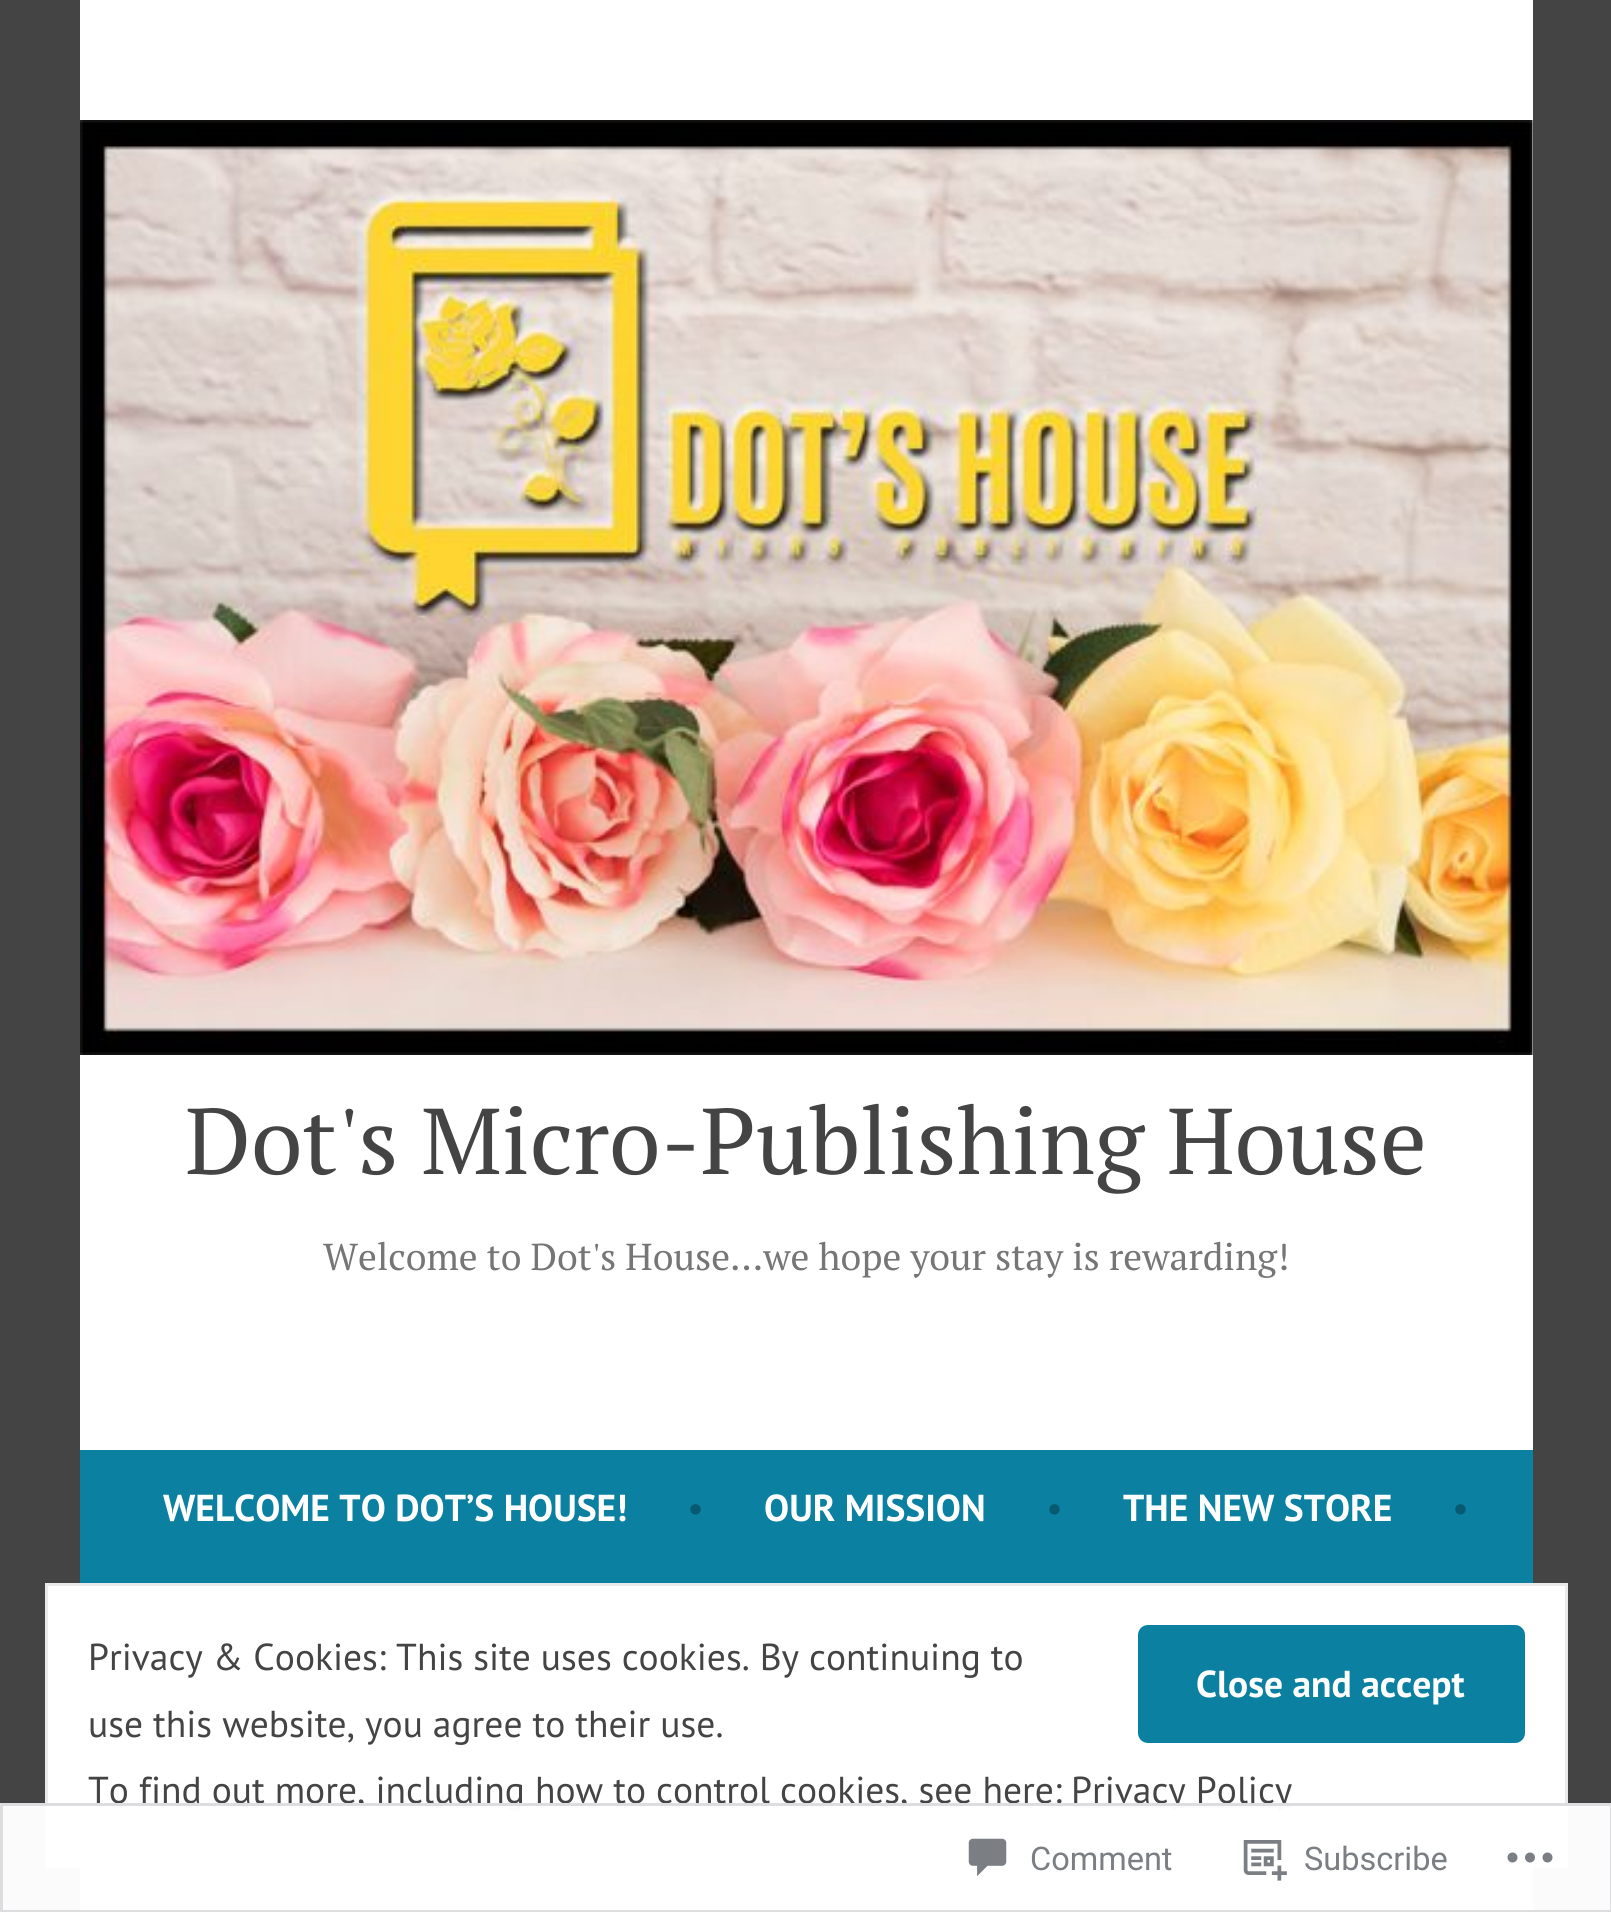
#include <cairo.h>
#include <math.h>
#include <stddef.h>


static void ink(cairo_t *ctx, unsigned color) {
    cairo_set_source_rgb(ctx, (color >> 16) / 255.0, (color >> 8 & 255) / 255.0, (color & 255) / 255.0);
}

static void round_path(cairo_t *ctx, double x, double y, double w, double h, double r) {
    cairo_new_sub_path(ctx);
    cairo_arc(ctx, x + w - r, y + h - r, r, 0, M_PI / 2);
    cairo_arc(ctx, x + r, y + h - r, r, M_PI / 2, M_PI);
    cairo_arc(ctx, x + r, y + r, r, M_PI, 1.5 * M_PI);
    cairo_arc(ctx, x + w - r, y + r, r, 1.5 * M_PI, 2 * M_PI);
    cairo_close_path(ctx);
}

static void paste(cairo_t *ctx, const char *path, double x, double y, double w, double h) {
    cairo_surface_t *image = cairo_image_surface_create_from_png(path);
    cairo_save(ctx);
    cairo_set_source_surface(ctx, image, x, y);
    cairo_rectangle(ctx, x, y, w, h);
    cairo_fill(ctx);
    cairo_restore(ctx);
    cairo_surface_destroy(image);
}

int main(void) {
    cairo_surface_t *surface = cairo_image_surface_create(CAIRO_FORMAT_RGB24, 1611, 1912);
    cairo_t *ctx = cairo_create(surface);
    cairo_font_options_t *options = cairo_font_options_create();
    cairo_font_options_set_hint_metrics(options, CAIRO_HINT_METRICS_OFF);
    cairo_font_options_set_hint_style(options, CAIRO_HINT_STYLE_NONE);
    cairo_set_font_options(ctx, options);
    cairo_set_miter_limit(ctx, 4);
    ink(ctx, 0x444444);
    cairo_paint(ctx);
    ink(ctx, 0xFFFFFF);
    cairo_rectangle(ctx, 80, 0, 1453, 1912);
    cairo_fill(ctx);
    paste(ctx, "media/1.png", 80, 120, 1453, 935);
    cairo_select_font_face(ctx, "PT Serif", CAIRO_FONT_SLANT_NORMAL, CAIRO_FONT_WEIGHT_NORMAL);
    cairo_set_font_size(ctx, 93.25);
    ink(ctx, 0x444444);
    cairo_move_to(ctx, 185, 1174);
    cairo_show_text(ctx, "Dot's Micro-Publishing House");
    cairo_set_font_size(ctx, 37.5);
    ink(ctx, 0x767676);
    cairo_move_to(ctx, 323, 1270);
    cairo_show_text(ctx, "Welcome to Dot's House…we hope your stay is rewarding!");
    ink(ctx, 0x0C80A1);
    cairo_rectangle(ctx, 80, 1450, 1453, 133);
    cairo_fill(ctx);
    cairo_select_font_face(ctx, "PT Sans", CAIRO_FONT_SLANT_NORMAL, CAIRO_FONT_WEIGHT_BOLD);
    ink(ctx, 0xFFFFFF);
    cairo_move_to(ctx, 163, 1521);
    cairo_show_text(ctx, "WELCOME TO DOT’S HOUSE!");
    cairo_select_font_face(ctx, "PT Sans", CAIRO_FONT_SLANT_NORMAL, CAIRO_FONT_WEIGHT_NORMAL);
    ink(ctx, 0x085A72);
    cairo_move_to(ctx, 687, 1521);
    cairo_show_text(ctx, "•");
    cairo_select_font_face(ctx, "PT Sans", CAIRO_FONT_SLANT_NORMAL, CAIRO_FONT_WEIGHT_BOLD);
    ink(ctx, 0xFFFFFF);
    cairo_move_to(ctx, 764, 1521);
    cairo_show_text(ctx, "OUR MISSION");
    cairo_select_font_face(ctx, "PT Sans", CAIRO_FONT_SLANT_NORMAL, CAIRO_FONT_WEIGHT_NORMAL);
    ink(ctx, 0x085A72);
    cairo_move_to(ctx, 1046, 1521);
    cairo_show_text(ctx, "•");
    cairo_select_font_face(ctx, "PT Sans", CAIRO_FONT_SLANT_NORMAL, CAIRO_FONT_WEIGHT_BOLD);
    ink(ctx, 0xFFFFFF);
    cairo_move_to(ctx, 1123, 1521);
    cairo_show_text(ctx, "THE NEW STORE");
    cairo_select_font_face(ctx, "PT Sans", CAIRO_FONT_SLANT_NORMAL, CAIRO_FONT_WEIGHT_NORMAL);
    ink(ctx, 0x085A72);
    cairo_move_to(ctx, 1452, 1521);
    cairo_show_text(ctx, "•");
    ink(ctx, 0xFFFFFF);
    cairo_rectangle(ctx, 46.5, 1584.5, 1520, 282);
    cairo_fill_preserve(ctx);
    ink(ctx, 0xEAEAEA);
    cairo_set_line_width(ctx, 3);
    cairo_stroke(ctx);
    ink(ctx, 0x444444);
    cairo_move_to(ctx, 88, 1670);
    cairo_show_text(ctx, "Privacy & Cookies: This site uses cookies. By continuing to");
    ink(ctx, 0x0C80A1);
    round_path(ctx, 1138, 1625, 387, 118, 10);
    cairo_fill(ctx);
    cairo_select_font_face(ctx, "PT Sans", CAIRO_FONT_SLANT_NORMAL, CAIRO_FONT_WEIGHT_BOLD);
    ink(ctx, 0xFFFFFF);
    cairo_move_to(ctx, 1196, 1697);
    cairo_show_text(ctx, "Close and accept");
    cairo_select_font_face(ctx, "PT Sans", CAIRO_FONT_SLANT_NORMAL, CAIRO_FONT_WEIGHT_NORMAL);
    ink(ctx, 0x444444);
    cairo_move_to(ctx, 88, 1737);
    cairo_show_text(ctx, "use this website, you agree to their use.");
    cairo_move_to(ctx, 88, 1803);
    cairo_show_text(ctx, "To find out more, including how to control cookies, see here:");
    cairo_rectangle(ctx, 1073, 1805, 220, 3);
    cairo_fill(ctx);
    cairo_move_to(ctx, 1071, 1803);
    cairo_show_text(ctx, "Privacy Policy");
    cairo_set_source_rgba(ctx, 1, 1, 1, 0.98);
    cairo_rectangle(ctx, 0, 1803, 1611, 109);
    cairo_fill(ctx);
    cairo_rectangle(ctx, 1.5, 1804.5, 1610, 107);
    cairo_set_source_rgba(ctx, 0.863, 0.863, 0.871, 0.98);
    cairo_stroke(ctx);
    paste(ctx, "media/2.png", 968, 1838, 39, 39);
    cairo_select_font_face(ctx, "Roboto", CAIRO_FONT_SLANT_NORMAL, CAIRO_FONT_WEIGHT_NORMAL);
    cairo_set_font_size(ctx, 32.5);
    ink(ctx, 0x7B7F84);
    cairo_move_to(ctx, 1030, 1870);
    cairo_show_text(ctx, "Comment");
    paste(ctx, "media/3.png", 1243, 1840, 44, 41);
    cairo_move_to(ctx, 1304, 1870);
    cairo_show_text(ctx, "Subscribe");
    paste(ctx, "media/4.png", 1507, 1852, 46, 11);
    cairo_surface_write_to_png(surface, "image.png");
    cairo_font_options_destroy(options);
    cairo_destroy(ctx);
    cairo_surface_destroy(surface);
    return 0;
}
